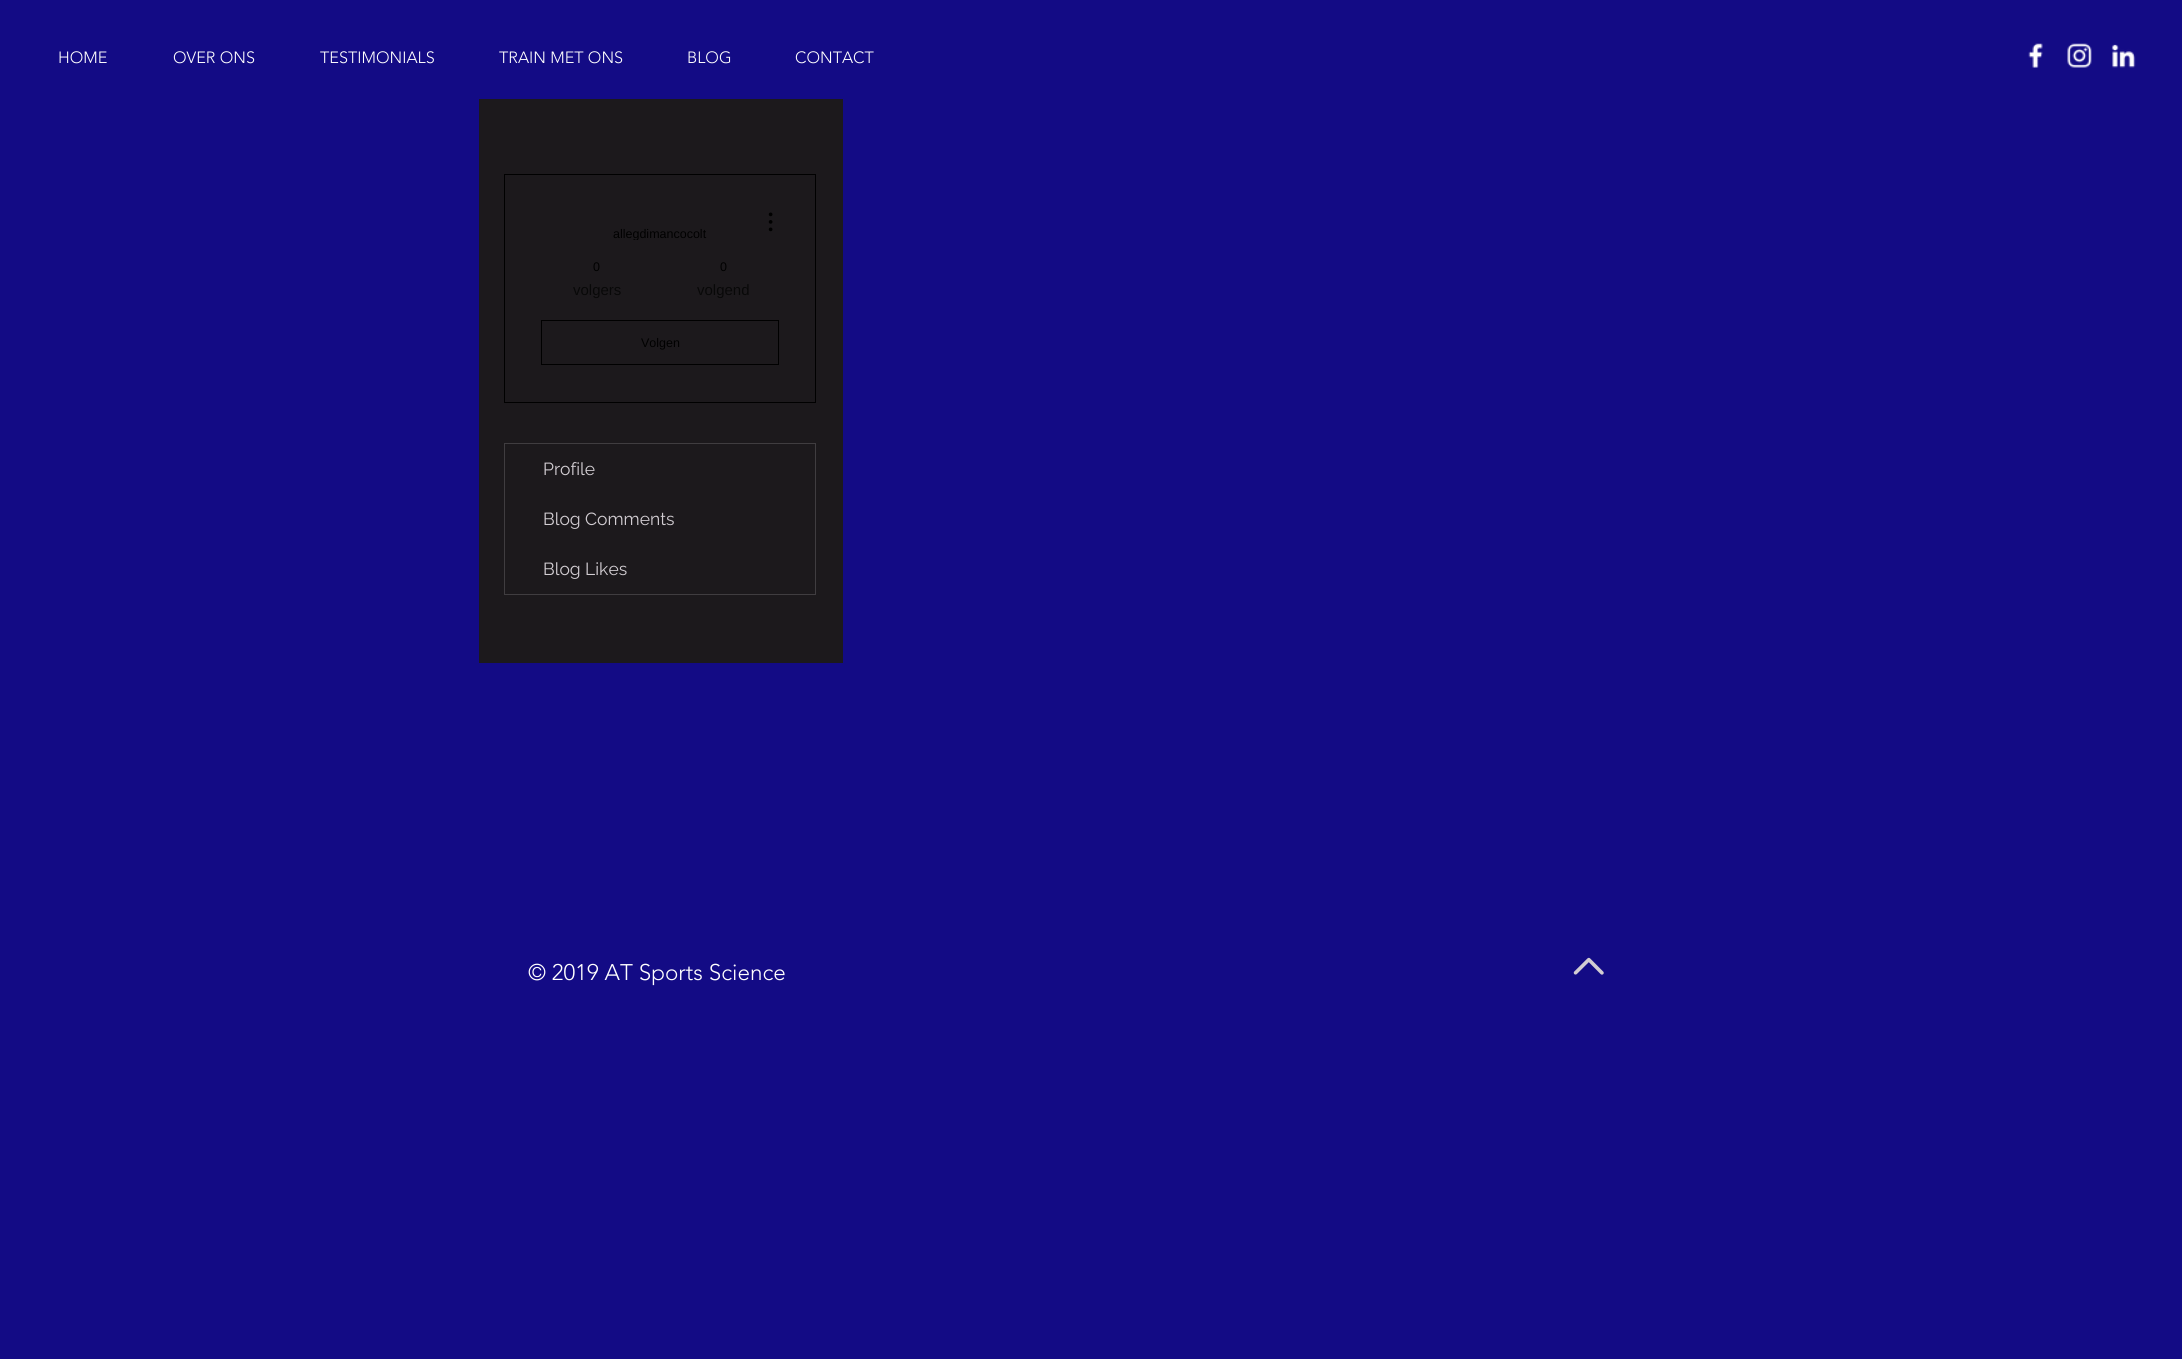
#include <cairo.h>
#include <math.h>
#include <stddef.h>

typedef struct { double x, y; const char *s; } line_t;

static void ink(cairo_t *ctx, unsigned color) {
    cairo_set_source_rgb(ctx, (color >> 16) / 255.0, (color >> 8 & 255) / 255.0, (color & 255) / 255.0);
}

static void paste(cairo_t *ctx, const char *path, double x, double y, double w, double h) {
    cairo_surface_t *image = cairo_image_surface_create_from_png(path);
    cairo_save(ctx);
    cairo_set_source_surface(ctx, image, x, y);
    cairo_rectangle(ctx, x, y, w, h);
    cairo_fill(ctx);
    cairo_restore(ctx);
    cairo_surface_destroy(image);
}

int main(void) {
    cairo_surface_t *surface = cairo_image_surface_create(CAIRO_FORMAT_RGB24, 2182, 1359);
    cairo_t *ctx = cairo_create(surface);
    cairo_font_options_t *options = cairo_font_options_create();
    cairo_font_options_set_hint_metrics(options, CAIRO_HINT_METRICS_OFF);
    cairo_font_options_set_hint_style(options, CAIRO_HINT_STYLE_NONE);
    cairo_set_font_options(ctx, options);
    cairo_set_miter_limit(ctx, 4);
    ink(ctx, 0x130B85);
    cairo_paint(ctx);
    cairo_select_font_face(ctx, "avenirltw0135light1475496 Light", CAIRO_FONT_SLANT_NORMAL, CAIRO_FONT_WEIGHT_NORMAL);
    cairo_set_font_size(ctx, 16.25);
    ink(ctx, 0xFFFFFF);
    {
        static const line_t items[] = {
            {58, 63, "HOME"},
            {173, 63, "OVER ONS"},
            {320, 63, "TESTIMONIALS"},
            {499, 63, "TRAIN MET ONS"},
            {687, 63, "BLOG"},
            {795, 63, "CONTACT"},
        };
        for (size_t i = 0; i < sizeof items / sizeof *items; i++) {
            cairo_move_to(ctx, items[i].x, items[i].y);
            cairo_show_text(ctx, items[i].s);
        }
    }
    paste(ctx, "media/1.png", 2028, 43, 15, 25);
    paste(ctx, "media/2.png", 2067, 43, 25, 25);
    paste(ctx, "media/3.png", 2111, 44, 25, 24);
    ink(ctx, 0x1C191C);
    cairo_rectangle(ctx, 479, 99, 364, 564);
    cairo_fill(ctx);
    cairo_rectangle(ctx, 504.5, 174.5, 311, 228);
    ink(ctx, 0x000000);
    cairo_set_line_width(ctx, 1);
    cairo_stroke(ctx);
    paste(ctx, "media/4.png", 768, 212, 5, 20);
    cairo_save(ctx);
    cairo_rectangle(ctx, 541, 226, 238, 14);
    cairo_clip(ctx);
    cairo_select_font_face(ctx, "Liberation Sans", CAIRO_FONT_SLANT_NORMAL, CAIRO_FONT_WEIGHT_NORMAL);
    cairo_set_font_size(ctx, 12.5);
    cairo_move_to(ctx, 613, 238);
    cairo_show_text(ctx, "allegdimancocolt");
    cairo_restore(ctx);
    cairo_select_font_face(ctx, "Liberation Sans", CAIRO_FONT_SLANT_NORMAL, CAIRO_FONT_WEIGHT_NORMAL);
    cairo_set_font_size(ctx, 12.5);
    cairo_move_to(ctx, 593, 271);
    cairo_show_text(ctx, "0");
    cairo_set_font_size(ctx, 15);
    ink(ctx, 0x080808);
    cairo_move_to(ctx, 573, 295);
    cairo_show_text(ctx, "volgers");
    cairo_set_font_size(ctx, 12.5);
    ink(ctx, 0x000000);
    cairo_move_to(ctx, 720, 271);
    cairo_show_text(ctx, "0");
    cairo_set_font_size(ctx, 15);
    ink(ctx, 0x080808);
    cairo_move_to(ctx, 697, 295);
    cairo_show_text(ctx, "volgend");
    cairo_rectangle(ctx, 541.5, 320.5, 237, 44);
    ink(ctx, 0x000000);
    cairo_stroke(ctx);
    cairo_set_font_size(ctx, 12.5);
    cairo_move_to(ctx, 641, 347);
    cairo_show_text(ctx, "Volgen");
    cairo_rectangle(ctx, 504.5, 443.5, 311, 151);
    ink(ctx, 0x403D40);
    cairo_stroke(ctx);
    cairo_select_font_face(ctx, "Raleway", CAIRO_FONT_SLANT_NORMAL, CAIRO_FONT_WEIGHT_NORMAL);
    cairo_set_font_size(ctx, 17.5);
    ink(ctx, 0xD2CDD2);
    {
        static const line_t items[] = {
            {543, 475, "Profile"},
            {543, 525, "Blog Comments"},
            {543, 575, "Blog Likes"},
        };
        for (size_t i = 0; i < sizeof items / sizeof *items; i++) {
            cairo_move_to(ctx, items[i].x, items[i].y);
            cairo_show_text(ctx, items[i].s);
        }
    }
    cairo_select_font_face(ctx, "avenirltw0135light1475496 Light", CAIRO_FONT_SLANT_NORMAL, CAIRO_FONT_WEIGHT_NORMAL);
    cairo_set_font_size(ctx, 22.5);
    ink(ctx, 0xFFFFFF);
    cairo_move_to(ctx, 528, 980);
    cairo_show_text(ctx, "© 2019 AT Sports Science");
    paste(ctx, "media/5.png", 1573, 957, 31, 18);
    cairo_surface_write_to_png(surface, "image.png");
    cairo_font_options_destroy(options);
    cairo_destroy(ctx);
    cairo_surface_destroy(surface);
    return 0;
}
